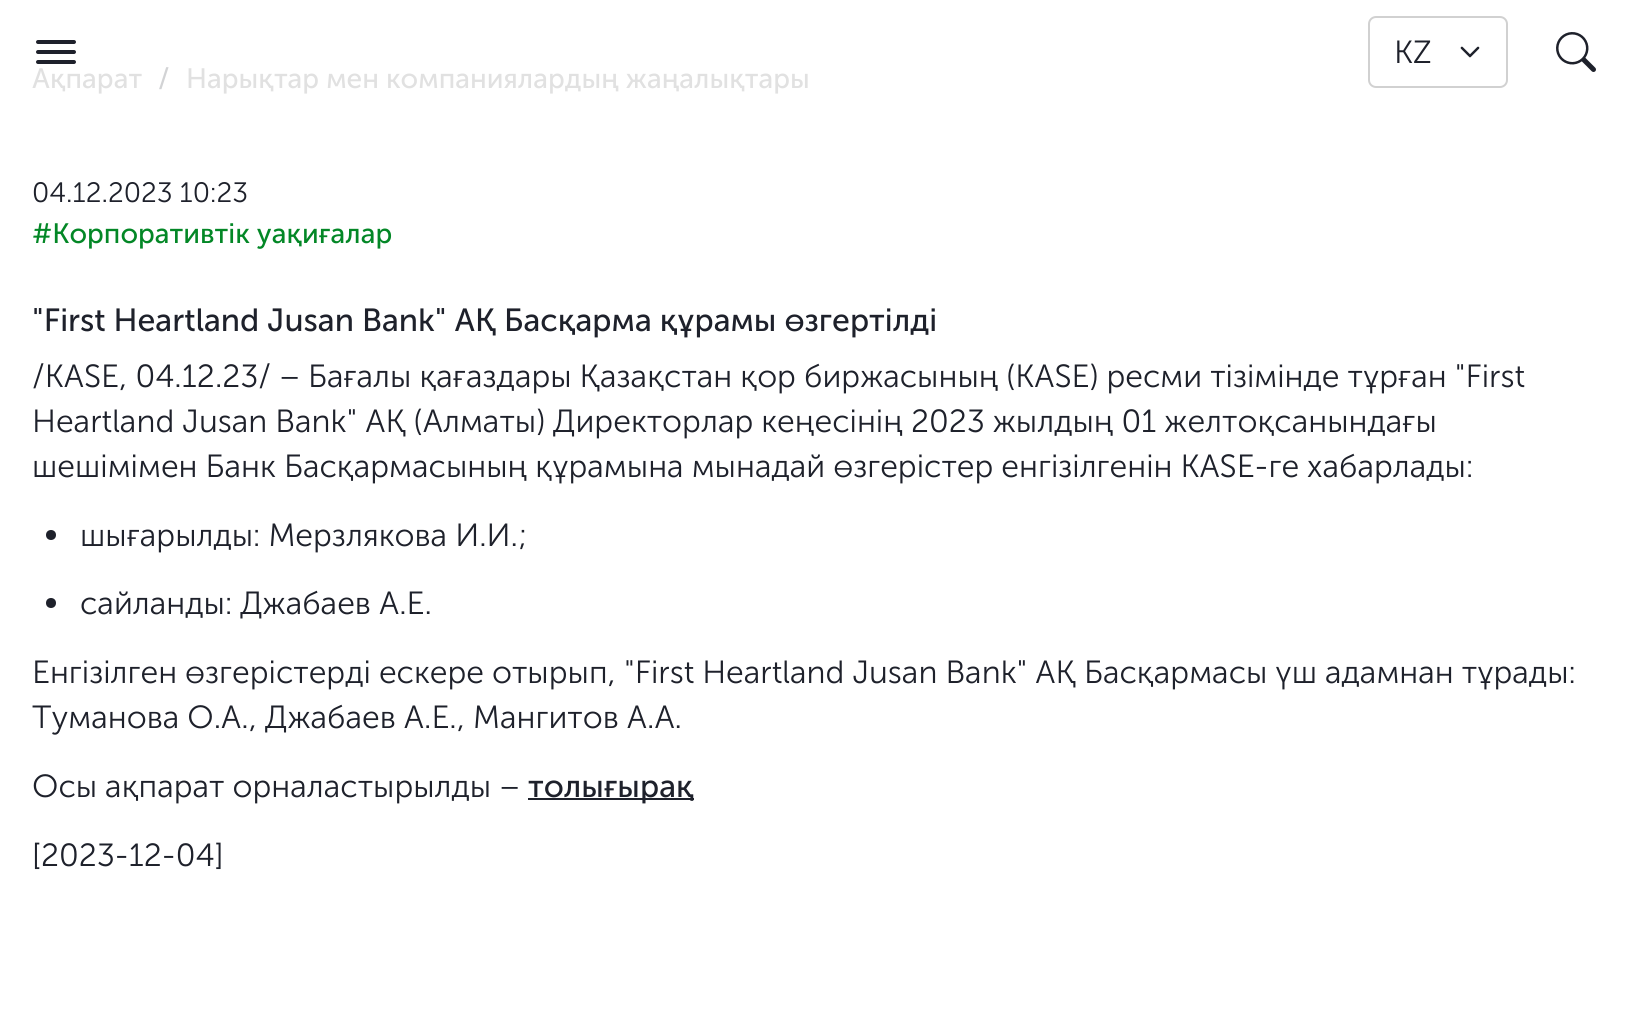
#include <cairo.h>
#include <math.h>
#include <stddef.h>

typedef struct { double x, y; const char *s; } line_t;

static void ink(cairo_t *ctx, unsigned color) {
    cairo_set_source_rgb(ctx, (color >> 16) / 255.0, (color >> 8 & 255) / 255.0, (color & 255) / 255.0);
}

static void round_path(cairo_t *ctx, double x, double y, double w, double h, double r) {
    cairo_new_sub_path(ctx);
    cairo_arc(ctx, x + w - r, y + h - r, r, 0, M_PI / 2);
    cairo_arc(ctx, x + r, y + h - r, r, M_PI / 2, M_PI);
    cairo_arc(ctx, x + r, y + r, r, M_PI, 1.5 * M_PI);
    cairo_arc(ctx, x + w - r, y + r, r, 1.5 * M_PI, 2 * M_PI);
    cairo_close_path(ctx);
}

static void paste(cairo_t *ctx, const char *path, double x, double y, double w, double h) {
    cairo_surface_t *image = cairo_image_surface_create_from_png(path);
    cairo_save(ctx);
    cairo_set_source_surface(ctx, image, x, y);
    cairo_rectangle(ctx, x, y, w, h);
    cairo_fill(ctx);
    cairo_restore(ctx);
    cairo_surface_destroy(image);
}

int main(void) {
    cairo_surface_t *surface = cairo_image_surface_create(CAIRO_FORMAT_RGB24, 1628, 1014);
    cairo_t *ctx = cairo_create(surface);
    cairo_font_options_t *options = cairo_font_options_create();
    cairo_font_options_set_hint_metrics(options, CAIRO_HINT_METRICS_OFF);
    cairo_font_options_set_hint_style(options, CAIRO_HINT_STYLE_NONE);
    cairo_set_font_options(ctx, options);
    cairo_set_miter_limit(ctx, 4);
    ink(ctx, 0xFFFFFF);
    cairo_paint(ctx);
    paste(ctx, "media/1.png", 36, 40, 40, 24);
    round_path(ctx, 1369, 17, 138, 70, 7);
    ink(ctx, 0xD1D1D1);
    cairo_stroke(ctx);
    cairo_select_font_face(ctx, "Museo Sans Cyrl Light", CAIRO_FONT_SLANT_NORMAL, CAIRO_FONT_WEIGHT_NORMAL);
    cairo_set_font_size(ctx, 32);
    ink(ctx, 0x1E212B);
    cairo_move_to(ctx, 1394, 63);
    cairo_show_text(ctx, "KZ");
    paste(ctx, "media/2.png", 1460, 46, 20, 12);
    paste(ctx, "media/3.png", 1556, 32, 40, 40);
    cairo_select_font_face(ctx, "Museo Sans Cyrl", CAIRO_FONT_SLANT_NORMAL, CAIRO_FONT_WEIGHT_NORMAL);
    cairo_set_font_size(ctx, 28);
    ink(ctx, 0xE1E1E1);
    cairo_move_to(ctx, 32, 88);
    cairo_show_text(ctx, "Ақпарат");
    ink(ctx, 0xD2D3D5);
    cairo_move_to(ctx, 158, 88);
    cairo_show_text(ctx, "/");
    ink(ctx, 0xE1E1E1);
    cairo_move_to(ctx, 186, 88);
    cairo_show_text(ctx, "Нарықтар мен компаниялардың жаңалықтары");
    cairo_select_font_face(ctx, "Museo Sans Cyrl Light", CAIRO_FONT_SLANT_NORMAL, CAIRO_FONT_WEIGHT_NORMAL);
    ink(ctx, 0x1E212B);
    cairo_move_to(ctx, 32, 202);
    cairo_show_text(ctx, "04.12.2023 10:23");
    cairo_select_font_face(ctx, "Museo Sans Cyrl", CAIRO_FONT_SLANT_NORMAL, CAIRO_FONT_WEIGHT_NORMAL);
    ink(ctx, 0x038726);
    cairo_move_to(ctx, 32, 243);
    cairo_show_text(ctx, "#Корпоративтік уақиғалар");
    cairo_set_font_size(ctx, 32);
    ink(ctx, 0x1E212B);
    cairo_move_to(ctx, 32, 331);
    cairo_show_text(ctx, "\"First Heartland Jusan Bank\" АҚ Басқарма құрамы өзгертілді");
    cairo_select_font_face(ctx, "Museo Sans Cyrl Light", CAIRO_FONT_SLANT_NORMAL, CAIRO_FONT_WEIGHT_NORMAL);
    {
        static const line_t items[] = {
            {32, 387, "/KASE, 04.12.23/ – Бағалы қағаздары Қазақстан қор биржасының (KASE) ресми тізімінде тұрған \"First"},
            {32, 432, "Heartland Jusan Bank\" АҚ (Алматы) Директорлар кеңесінің 2023 жылдың 01 желтоқсанындағы"},
            {32, 477, "шешімімен Банк Басқармасының құрамына мынадай өзгерістер енгізілгенін KASE-ге хабарлады:"},
        };
        for (size_t i = 0; i < sizeof items / sizeof *items; i++) {
            cairo_move_to(ctx, items[i].x, items[i].y);
            cairo_show_text(ctx, items[i].s);
        }
    }
    cairo_new_path(ctx);
    cairo_arc(ctx, 51, 535, 5, 0, 2 * M_PI);
    cairo_fill(ctx);
    cairo_move_to(ctx, 80, 546);
    cairo_show_text(ctx, "шығарылды: Мерзлякова И.И.;");
    cairo_new_path(ctx);
    cairo_arc(ctx, 51, 603, 5, 0, 2 * M_PI);
    cairo_fill(ctx);
    {
        static const line_t items[] = {
            {80, 614, "сайланды: Джабаев А.Е."},
            {32, 683, "Енгізілген өзгерістерді ескере отырып, \"First Heartland Jusan Bank\" АҚ Басқармасы үш адамнан тұрады:"},
            {32, 728, "Туманова О.А., Джабаев А.Е., Мангитов А.А."},
            {32, 797, "Осы ақпарат орналастырылды –"},
        };
        for (size_t i = 0; i < sizeof items / sizeof *items; i++) {
            cairo_move_to(ctx, items[i].x, items[i].y);
            cairo_show_text(ctx, items[i].s);
        }
    }
    cairo_rectangle(ctx, 528, 798, 166, 2);
    cairo_fill(ctx);
    cairo_select_font_face(ctx, "Museo Sans Cyrl", CAIRO_FONT_SLANT_NORMAL, CAIRO_FONT_WEIGHT_NORMAL);
    cairo_move_to(ctx, 528, 797);
    cairo_show_text(ctx, "толығырақ");
    cairo_select_font_face(ctx, "Museo Sans Cyrl Light", CAIRO_FONT_SLANT_NORMAL, CAIRO_FONT_WEIGHT_NORMAL);
    cairo_move_to(ctx, 32, 866);
    cairo_show_text(ctx, "[2023-12-04]");
    cairo_surface_write_to_png(surface, "image.png");
    cairo_font_options_destroy(options);
    cairo_destroy(ctx);
    cairo_surface_destroy(surface);
    return 0;
}
